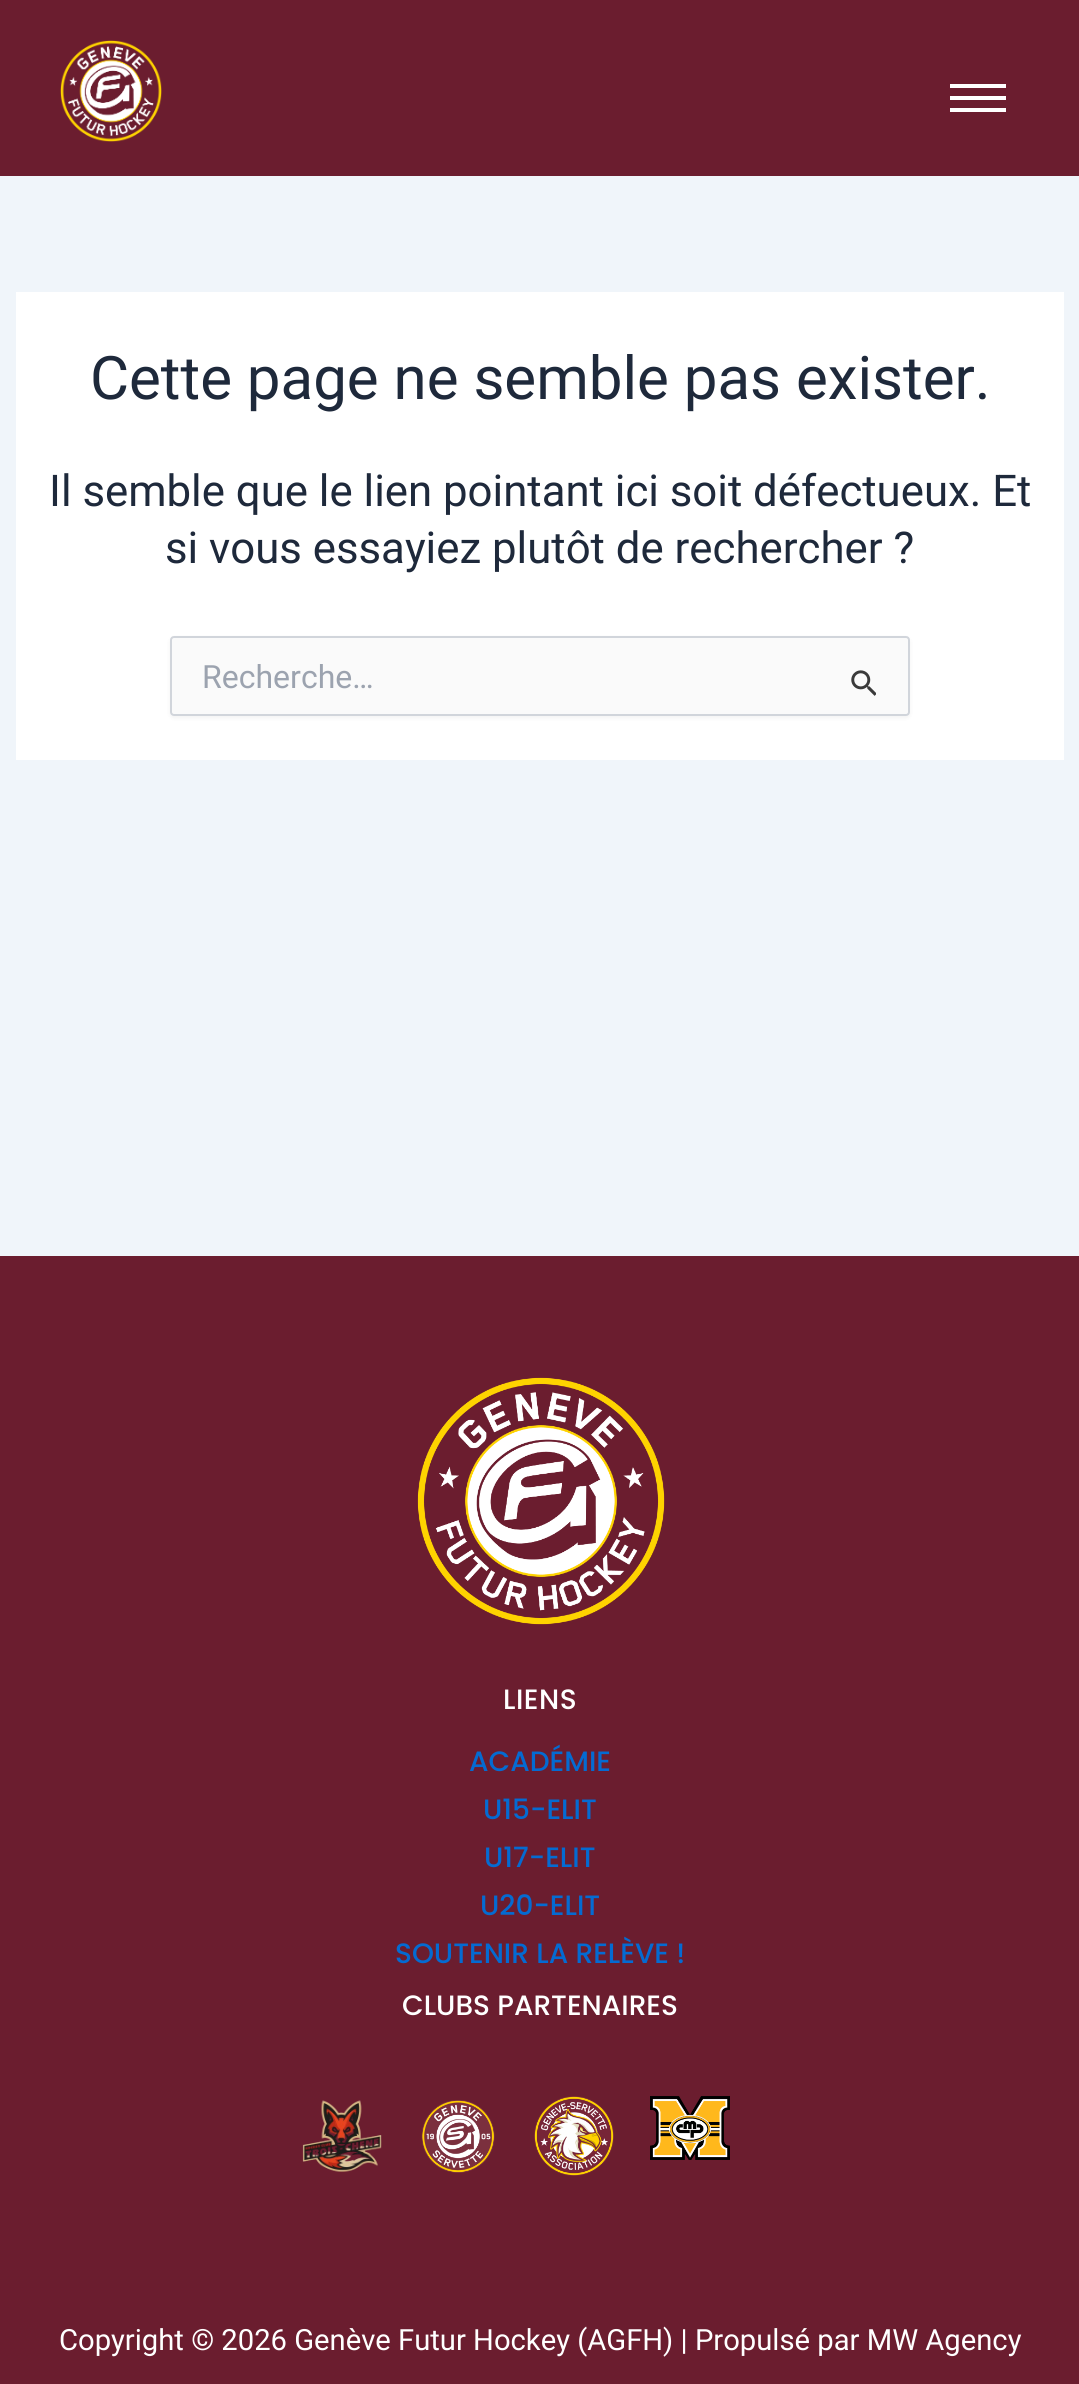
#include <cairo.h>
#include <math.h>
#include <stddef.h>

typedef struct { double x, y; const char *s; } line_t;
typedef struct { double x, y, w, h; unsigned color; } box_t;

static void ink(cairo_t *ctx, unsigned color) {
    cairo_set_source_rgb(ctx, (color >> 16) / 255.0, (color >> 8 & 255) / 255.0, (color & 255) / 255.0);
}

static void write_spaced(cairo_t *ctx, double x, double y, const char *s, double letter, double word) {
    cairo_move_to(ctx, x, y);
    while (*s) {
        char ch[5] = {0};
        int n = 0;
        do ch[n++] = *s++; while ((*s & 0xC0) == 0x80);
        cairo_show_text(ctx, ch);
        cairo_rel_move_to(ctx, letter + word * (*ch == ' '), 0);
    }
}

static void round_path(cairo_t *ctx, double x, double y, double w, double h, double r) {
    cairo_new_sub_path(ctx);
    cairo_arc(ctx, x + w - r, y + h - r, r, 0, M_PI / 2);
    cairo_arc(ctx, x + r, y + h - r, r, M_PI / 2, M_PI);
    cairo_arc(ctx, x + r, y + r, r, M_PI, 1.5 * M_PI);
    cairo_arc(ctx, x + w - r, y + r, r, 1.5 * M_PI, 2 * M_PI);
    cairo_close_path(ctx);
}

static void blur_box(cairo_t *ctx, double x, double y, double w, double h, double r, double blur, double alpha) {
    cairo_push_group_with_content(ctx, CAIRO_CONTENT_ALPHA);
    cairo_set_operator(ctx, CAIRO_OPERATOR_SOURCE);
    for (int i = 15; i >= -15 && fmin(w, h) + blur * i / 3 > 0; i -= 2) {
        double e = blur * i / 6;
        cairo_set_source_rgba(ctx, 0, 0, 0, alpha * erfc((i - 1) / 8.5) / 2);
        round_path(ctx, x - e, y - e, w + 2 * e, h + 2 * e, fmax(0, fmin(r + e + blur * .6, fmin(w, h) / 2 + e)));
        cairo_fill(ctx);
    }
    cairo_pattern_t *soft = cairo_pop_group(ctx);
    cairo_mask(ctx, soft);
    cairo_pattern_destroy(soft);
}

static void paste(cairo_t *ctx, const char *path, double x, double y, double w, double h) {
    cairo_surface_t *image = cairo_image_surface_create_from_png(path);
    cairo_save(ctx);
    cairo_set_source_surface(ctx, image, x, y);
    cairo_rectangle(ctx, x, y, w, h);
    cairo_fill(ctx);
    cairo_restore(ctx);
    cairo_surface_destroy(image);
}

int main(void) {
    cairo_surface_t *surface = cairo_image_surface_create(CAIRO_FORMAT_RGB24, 1079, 2384);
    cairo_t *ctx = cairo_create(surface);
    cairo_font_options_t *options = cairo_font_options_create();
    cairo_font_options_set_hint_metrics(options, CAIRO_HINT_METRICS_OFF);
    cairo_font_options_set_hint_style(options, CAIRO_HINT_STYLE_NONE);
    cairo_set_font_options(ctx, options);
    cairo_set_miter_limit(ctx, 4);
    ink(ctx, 0xF0F5FA);
    cairo_paint(ctx);
    ink(ctx, 0x6B1D2F);
    cairo_rectangle(ctx, 0, 0, 1079, 176);
    cairo_fill(ctx);
    paste(ctx, "media/1.png", 60, 40, 102, 102);
    {
        static const box_t items[] = {
            {950, 84, 56, 4, 0xFFFFFF},
            {950, 96, 56, 4, 0xFFFFFF},
            {950, 108, 56, 4, 0xFFFFFF},
            {16, 292, 1048, 468, 0xFFFFFF},
        };
        for (size_t i = 0; i < sizeof items / sizeof *items; i++) {
            ink(ctx, items[i].color);
            cairo_rectangle(ctx, items[i].x, items[i].y, items[i].w, items[i].h);
            cairo_fill(ctx);
        }
    }
    cairo_select_font_face(ctx, "Roboto", CAIRO_FONT_SLANT_NORMAL, CAIRO_FONT_WEIGHT_NORMAL);
    cairo_set_font_size(ctx, 60);
    ink(ctx, 0x1E293B);
    cairo_move_to(ctx, 90, 399);
    cairo_show_text(ctx, "Cette page ne semble pas exister.");
    cairo_set_font_size(ctx, 43.75);
    cairo_move_to(ctx, 49, 506);
    cairo_show_text(ctx, "Il semble que le lien pointant ici soit défectueux. Et");
    cairo_move_to(ctx, 165, 563);
    cairo_show_text(ctx, "si vous essayiez plutôt de rechercher ?");
    ink(ctx, 0x000000);
    blur_box(ctx, 170, 638, 740, 80, 4, 2, 0.05);
    ink(ctx, 0xFAFAFA);
    round_path(ctx, 171, 637, 738, 78, 3);
    cairo_fill_preserve(ctx);
    ink(ctx, 0xD1D5DB);
    cairo_stroke(ctx);
    cairo_set_font_size(ctx, 32);
    ink(ctx, 0x9CA3AF);
    cairo_move_to(ctx, 202, 688);
    cairo_show_text(ctx, "Recherche…");
    paste(ctx, "media/2.png", 851, 670, 25, 26);
    ink(ctx, 0x6B1D2F);
    cairo_rectangle(ctx, 0, 1256, 1079, 1128);
    cairo_fill(ctx);
    paste(ctx, "media/3.png", 417, 1377, 248, 248);
    cairo_select_font_face(ctx, "Poppins Medium", CAIRO_FONT_SLANT_NORMAL, CAIRO_FONT_WEIGHT_NORMAL);
    cairo_set_font_size(ctx, 28);
    ink(ctx, 0xFFFFFF);
    write_spaced(ctx, 503, 1709, "LIENS", 0.5, 0);
    ink(ctx, 0x046BD2);
    {
        static const line_t items[] = {
            {469, 1771, "ACADÉMIE"},
            {483, 1819, "U15-ELIT"},
            {484, 1867, "U17-ELIT"},
            {480, 1915, "U20-ELIT"},
            {395, 1963, "SOUTENIR LA RELÈVE !"},
        };
        for (size_t i = 0; i < sizeof items / sizeof *items; i++) {
            cairo_move_to(ctx, items[i].x, items[i].y);
            cairo_show_text(ctx, items[i].s);
        }
    }
    ink(ctx, 0xFFFFFF);
    cairo_move_to(ctx, 402, 2015);
    cairo_show_text(ctx, "CLUBS PARTENAIRES");
    paste(ctx, "media/4.png", 302, 2100, 80, 72);
    paste(ctx, "media/5.png", 421, 2100, 74, 73);
    paste(ctx, "media/6.png", 534, 2096, 80, 80);
    paste(ctx, "media/7.png", 650, 2096, 80, 64);
    cairo_select_font_face(ctx, "Roboto", CAIRO_FONT_SLANT_NORMAL, CAIRO_FONT_WEIGHT_NORMAL);
    cairo_set_font_size(ctx, 29.2);
    cairo_move_to(ctx, 59, 2350);
    cairo_show_text(ctx, "Copyright © 2026 Genève Futur Hockey (AGFH) | Propulsé par MW Agency");
    cairo_surface_write_to_png(surface, "image.png");
    cairo_font_options_destroy(options);
    cairo_destroy(ctx);
    cairo_surface_destroy(surface);
    return 0;
}
